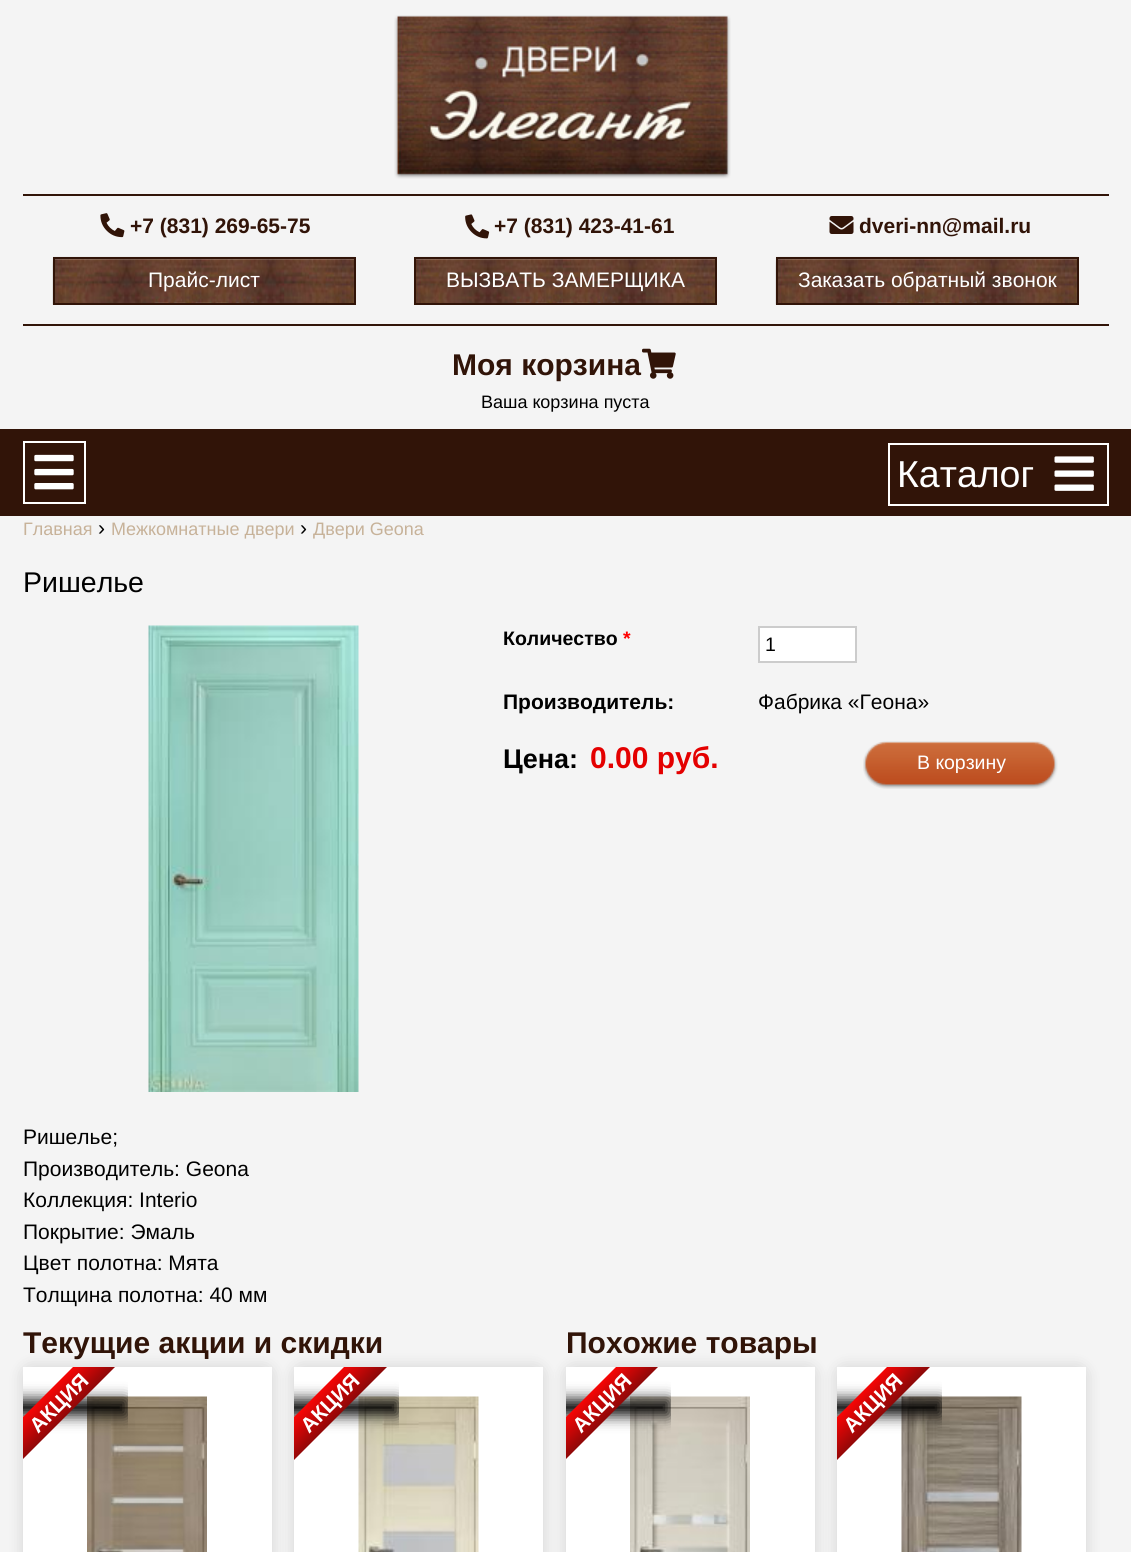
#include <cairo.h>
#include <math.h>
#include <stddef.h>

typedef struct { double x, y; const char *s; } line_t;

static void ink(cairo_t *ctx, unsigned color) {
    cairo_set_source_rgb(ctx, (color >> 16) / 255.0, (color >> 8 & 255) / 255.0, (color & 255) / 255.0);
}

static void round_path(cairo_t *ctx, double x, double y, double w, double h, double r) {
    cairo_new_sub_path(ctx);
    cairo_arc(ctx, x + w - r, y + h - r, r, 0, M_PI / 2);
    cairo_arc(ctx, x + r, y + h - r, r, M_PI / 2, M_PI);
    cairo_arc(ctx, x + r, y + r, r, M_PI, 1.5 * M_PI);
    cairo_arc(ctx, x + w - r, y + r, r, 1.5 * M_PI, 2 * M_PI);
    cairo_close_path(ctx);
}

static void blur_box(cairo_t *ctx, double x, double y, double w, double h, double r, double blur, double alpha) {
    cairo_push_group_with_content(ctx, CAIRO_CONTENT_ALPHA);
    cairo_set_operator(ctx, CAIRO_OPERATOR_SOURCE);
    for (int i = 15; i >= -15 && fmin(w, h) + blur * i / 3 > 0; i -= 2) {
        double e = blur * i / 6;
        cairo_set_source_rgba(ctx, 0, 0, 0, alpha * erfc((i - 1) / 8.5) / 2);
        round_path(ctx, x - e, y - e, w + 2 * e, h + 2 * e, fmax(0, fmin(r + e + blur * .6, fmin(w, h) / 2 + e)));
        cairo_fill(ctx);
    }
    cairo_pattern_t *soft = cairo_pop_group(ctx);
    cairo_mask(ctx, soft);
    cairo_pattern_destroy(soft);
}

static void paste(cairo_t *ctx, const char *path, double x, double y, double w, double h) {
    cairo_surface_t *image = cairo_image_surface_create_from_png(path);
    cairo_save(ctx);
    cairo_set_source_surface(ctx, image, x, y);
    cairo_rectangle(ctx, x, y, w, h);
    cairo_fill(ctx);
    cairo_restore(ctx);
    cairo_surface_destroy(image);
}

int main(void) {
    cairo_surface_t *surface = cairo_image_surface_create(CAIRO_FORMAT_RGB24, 1131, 1552);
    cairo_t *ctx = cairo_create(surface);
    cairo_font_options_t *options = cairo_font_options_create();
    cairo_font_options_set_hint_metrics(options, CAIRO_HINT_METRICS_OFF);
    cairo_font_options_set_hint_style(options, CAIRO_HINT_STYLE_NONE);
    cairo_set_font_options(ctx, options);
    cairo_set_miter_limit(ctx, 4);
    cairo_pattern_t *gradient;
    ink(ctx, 0xF4F4F4);
    cairo_paint(ctx);
    paste(ctx, "media/1.png", 394, 15, 337, 164);
    ink(ctx, 0x311408);
    cairo_rectangle(ctx, 23, 194, 1086, 2);
    cairo_fill(ctx);
    paste(ctx, "media/2.png", 100, 213, 25, 25);
    cairo_select_font_face(ctx, "Liberation Sans", CAIRO_FONT_SLANT_NORMAL, CAIRO_FONT_WEIGHT_BOLD);
    cairo_set_font_size(ctx, 21);
    cairo_move_to(ctx, 130, 233);
    cairo_show_text(ctx, "+7 (831) 269-65-75");
    paste(ctx, "media/3.png", 465, 214, 25, 25);
    cairo_move_to(ctx, 494, 233);
    cairo_show_text(ctx, "+7 (831) 423-41-61");
    paste(ctx, "media/4.png", 829, 216, 25, 18);
    cairo_move_to(ctx, 859, 233);
    cairo_show_text(ctx, "dveri-nn@mail.ru");
    cairo_rectangle(ctx, 23, 324, 1086, 2);
    cairo_fill(ctx);
    paste(ctx, "media/5.png", 52, 256, 303, 49);
    cairo_rectangle(ctx, 54, 258, 301, 46);
    cairo_stroke(ctx);
    cairo_select_font_face(ctx, "Liberation Sans", CAIRO_FONT_SLANT_NORMAL, CAIRO_FONT_WEIGHT_NORMAL);
    ink(ctx, 0xFFFFFF);
    cairo_move_to(ctx, 148, 287);
    cairo_show_text(ctx, "Прайс-лист");
    paste(ctx, "media/6.png", 416, 256, 301, 47);
    cairo_rectangle(ctx, 415, 258, 301, 46);
    ink(ctx, 0x311408);
    cairo_stroke(ctx);
    ink(ctx, 0xFFFFFF);
    cairo_move_to(ctx, 446, 287);
    cairo_show_text(ctx, "ВЫЗВАТЬ ЗАМЕРЩИКА");
    paste(ctx, "media/5.png", 775, 256, 303, 49);
    cairo_rectangle(ctx, 777, 258, 301, 46);
    ink(ctx, 0x311408);
    cairo_stroke(ctx);
    ink(ctx, 0xFFFFFF);
    cairo_move_to(ctx, 798, 287);
    cairo_show_text(ctx, "Заказать обратный звонок");
    cairo_select_font_face(ctx, "Liberation Sans", CAIRO_FONT_SLANT_NORMAL, CAIRO_FONT_WEIGHT_BOLD);
    cairo_set_font_size(ctx, 30);
    ink(ctx, 0x311408);
    cairo_move_to(ctx, 452, 375);
    cairo_show_text(ctx, "Моя корзина");
    paste(ctx, "media/7.png", 642, 348, 34, 31);
    cairo_select_font_face(ctx, "Liberation Sans", CAIRO_FONT_SLANT_NORMAL, CAIRO_FONT_WEIGHT_NORMAL);
    cairo_set_font_size(ctx, 18);
    ink(ctx, 0x000000);
    cairo_move_to(ctx, 481, 408);
    cairo_show_text(ctx, "Ваша корзина пуста");
    ink(ctx, 0x311408);
    cairo_rectangle(ctx, 0, 429, 1131, 87);
    cairo_fill(ctx);
    cairo_rectangle(ctx, 24, 442, 61, 61);
    ink(ctx, 0xFFFFFF);
    cairo_stroke(ctx);
    paste(ctx, "media/8.png", 34, 454, 40, 36);
    cairo_rectangle(ctx, 889, 444, 219, 61);
    cairo_stroke(ctx);
    cairo_set_font_size(ctx, 37.5);
    cairo_move_to(ctx, 897, 487);
    cairo_show_text(ctx, "Каталог");
    paste(ctx, "media/9.png", 1054, 456, 40, 35);
    cairo_set_font_size(ctx, 18);
    ink(ctx, 0xC7B299);
    cairo_move_to(ctx, 23, 535);
    cairo_show_text(ctx, "Главная");
    cairo_set_font_size(ctx, 21);
    ink(ctx, 0x000000);
    cairo_move_to(ctx, 98, 535);
    cairo_show_text(ctx, "›");
    cairo_set_font_size(ctx, 18);
    ink(ctx, 0xC7B299);
    cairo_move_to(ctx, 111, 535);
    cairo_show_text(ctx, "Межкомнатные двери");
    cairo_set_font_size(ctx, 21);
    ink(ctx, 0x000000);
    cairo_move_to(ctx, 300, 535);
    cairo_show_text(ctx, "›");
    cairo_set_font_size(ctx, 18);
    ink(ctx, 0xC7B299);
    cairo_move_to(ctx, 313, 535);
    cairo_show_text(ctx, "Двери Geona");
    cairo_set_font_size(ctx, 28.5);
    ink(ctx, 0x000000);
    cairo_move_to(ctx, 23, 592);
    cairo_show_text(ctx, "Ришелье");
    paste(ctx, "media/10.png", 148, 625, 211, 467);
    cairo_select_font_face(ctx, "Liberation Sans", CAIRO_FONT_SLANT_NORMAL, CAIRO_FONT_WEIGHT_BOLD);
    cairo_set_font_size(ctx, 19.5);
    cairo_move_to(ctx, 503, 645);
    cairo_show_text(ctx, "Количество");
    ink(ctx, 0xFF0000);
    cairo_move_to(ctx, 623, 645);
    cairo_show_text(ctx, "*");
    ink(ctx, 0xFFFFFF);
    cairo_rectangle(ctx, 759, 627, 97, 35);
    cairo_fill_preserve(ctx);
    ink(ctx, 0xCCCCCC);
    cairo_stroke(ctx);
    cairo_select_font_face(ctx, "Liberation Sans", CAIRO_FONT_SLANT_NORMAL, CAIRO_FONT_WEIGHT_NORMAL);
    ink(ctx, 0x000000);
    cairo_move_to(ctx, 765, 651);
    cairo_show_text(ctx, "1");
    paste(ctx, "media/11.png", 863, 741, 195, 48);
    ink(ctx, 0xFFFFFF);
    cairo_move_to(ctx, 917, 769);
    cairo_show_text(ctx, "В корзину");
    cairo_select_font_face(ctx, "Liberation Sans", CAIRO_FONT_SLANT_NORMAL, CAIRO_FONT_WEIGHT_BOLD);
    cairo_set_font_size(ctx, 21);
    ink(ctx, 0x000000);
    cairo_move_to(ctx, 503, 709);
    cairo_show_text(ctx, "Производитель:");
    cairo_select_font_face(ctx, "Liberation Sans", CAIRO_FONT_SLANT_NORMAL, CAIRO_FONT_WEIGHT_NORMAL);
    cairo_move_to(ctx, 758, 709);
    cairo_show_text(ctx, "Фабрика «Геона»");
    cairo_select_font_face(ctx, "Liberation Sans", CAIRO_FONT_SLANT_NORMAL, CAIRO_FONT_WEIGHT_BOLD);
    cairo_set_font_size(ctx, 27);
    cairo_move_to(ctx, 503, 768);
    cairo_show_text(ctx, "Цена:");
    cairo_set_font_size(ctx, 30);
    ink(ctx, 0xE40000);
    cairo_move_to(ctx, 590, 768);
    cairo_show_text(ctx, "0.00 руб.");
    cairo_select_font_face(ctx, "Liberation Sans", CAIRO_FONT_SLANT_NORMAL, CAIRO_FONT_WEIGHT_NORMAL);
    cairo_set_font_size(ctx, 21);
    ink(ctx, 0x000000);
    {
        static const line_t items[] = {
            {23, 1144, "Ришелье;"},
            {23, 1176, "Производитель: Geona"},
            {23, 1207, "Коллекция: Interio"},
            {23, 1239, "Покрытие: Эмаль"},
            {23, 1270, "Цвет полотна: Мята"},
            {23, 1302, "Толщина полотна: 40 мм"},
        };
        for (size_t i = 0; i < sizeof items / sizeof *items; i++) {
            cairo_move_to(ctx, items[i].x, items[i].y);
            cairo_show_text(ctx, items[i].s);
        }
    }
    cairo_select_font_face(ctx, "Liberation Sans", CAIRO_FONT_SLANT_NORMAL, CAIRO_FONT_WEIGHT_BOLD);
    cairo_set_font_size(ctx, 30);
    ink(ctx, 0x311408);
    cairo_move_to(ctx, 23, 1353);
    cairo_show_text(ctx, "Текущие акции и скидки");
    ink(ctx, 0x000000);
    blur_box(ctx, 23, 1367, 249, 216, 8, 7.5, 0.14);
    ink(ctx, 0xFFFFFF);
    cairo_rectangle(ctx, 23, 1367, 249, 185);
    cairo_fill(ctx);
    paste(ctx, "media/12.png", 87, 1396, 120, 156);
    cairo_save(ctx);
    cairo_new_path(ctx);
    cairo_move_to(ctx, 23, 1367);
    cairo_line_to(ctx, 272, 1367);
    cairo_line_to(ctx, 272, 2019);
    cairo_curve_to(ctx, 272, 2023.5, 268.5, 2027, 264, 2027);
    cairo_line_to(ctx, 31, 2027);
    cairo_curve_to(ctx, 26.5, 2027, 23, 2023.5, 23, 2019);
    cairo_close_path(ctx);
    cairo_clip(ctx);
    cairo_rectangle(ctx, 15, 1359, 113, 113);
    cairo_clip(ctx);
    ink(ctx, 0x000000);
    blur_box(ctx, -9, 1400, 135, 15, 0, 7.5, 1);
    cairo_restore(ctx);
    gradient = cairo_pattern_create_linear(48, 1392, 69, 1413);
    cairo_pattern_add_color_stop_rgba(gradient, 0, 0.969, 0.02, 0.02, 1);
    cairo_pattern_add_color_stop_rgba(gradient, 1, 0.561, 0.031, 0.031, 1);
    cairo_set_source(ctx, gradient);
    cairo_pattern_destroy(gradient);
    cairo_new_path(ctx);
    cairo_move_to(ctx, 115, 1367);
    cairo_line_to(ctx, 23, 1459);
    cairo_line_to(ctx, 23, 1417);
    cairo_line_to(ctx, 73, 1367);
    cairo_close_path(ctx);
    cairo_fill(ctx);
    cairo_set_font_size(ctx, 21);
    ink(ctx, 0xFFFFFF);
    cairo_save(ctx);
    cairo_translate(ctx, 38, 1434);
    cairo_rotate(ctx, -45 * M_PI / 180);
    cairo_move_to(ctx, 0, 0);
    cairo_show_text(ctx, "АКЦИЯ");
    cairo_restore(ctx);
    ink(ctx, 0x000000);
    blur_box(ctx, 294, 1367, 249, 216, 8, 7.5, 0.14);
    ink(ctx, 0xFFFFFF);
    cairo_rectangle(ctx, 294, 1367, 249, 185);
    cairo_fill(ctx);
    paste(ctx, "media/13.png", 358, 1396, 121, 156);
    cairo_save(ctx);
    cairo_new_path(ctx);
    cairo_move_to(ctx, 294, 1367);
    cairo_line_to(ctx, 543, 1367);
    cairo_line_to(ctx, 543, 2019);
    cairo_curve_to(ctx, 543, 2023.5, 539.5, 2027, 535, 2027);
    cairo_line_to(ctx, 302, 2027);
    cairo_curve_to(ctx, 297.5, 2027, 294, 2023.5, 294, 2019);
    cairo_close_path(ctx);
    cairo_clip(ctx);
    cairo_rectangle(ctx, 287, 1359, 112, 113);
    cairo_clip(ctx);
    ink(ctx, 0x000000);
    blur_box(ctx, 263, 1400, 135, 15, 0, 7.5, 1);
    cairo_restore(ctx);
    gradient = cairo_pattern_create_linear(319, 1392, 341, 1413);
    cairo_pattern_add_color_stop_rgba(gradient, 0, 0.969, 0.02, 0.02, 1);
    cairo_pattern_add_color_stop_rgba(gradient, 1, 0.561, 0.031, 0.031, 1);
    cairo_set_source(ctx, gradient);
    cairo_pattern_destroy(gradient);
    cairo_new_path(ctx);
    cairo_move_to(ctx, 387, 1367);
    cairo_line_to(ctx, 294, 1460);
    cairo_line_to(ctx, 294, 1417);
    cairo_line_to(ctx, 344, 1367);
    cairo_close_path(ctx);
    cairo_fill(ctx);
    ink(ctx, 0xFFFFFF);
    cairo_save(ctx);
    cairo_translate(ctx, 309, 1434);
    cairo_rotate(ctx, -45 * M_PI / 180);
    cairo_move_to(ctx, 0, 0);
    cairo_show_text(ctx, "АКЦИЯ");
    cairo_restore(ctx);
    cairo_set_font_size(ctx, 30);
    ink(ctx, 0x311408);
    cairo_move_to(ctx, 566, 1353);
    cairo_show_text(ctx, "Похожие товары");
    ink(ctx, 0x000000);
    blur_box(ctx, 566, 1367, 249, 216, 8, 7.5, 0.14);
    ink(ctx, 0xFFFFFF);
    cairo_rectangle(ctx, 566, 1367, 249, 185);
    cairo_fill(ctx);
    paste(ctx, "media/14.png", 630, 1396, 120, 156);
    cairo_save(ctx);
    cairo_new_path(ctx);
    cairo_move_to(ctx, 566, 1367);
    cairo_line_to(ctx, 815, 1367);
    cairo_line_to(ctx, 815, 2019);
    cairo_curve_to(ctx, 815, 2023.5, 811.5, 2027, 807, 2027);
    cairo_line_to(ctx, 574, 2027);
    cairo_curve_to(ctx, 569.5, 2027, 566, 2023.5, 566, 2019);
    cairo_close_path(ctx);
    cairo_clip(ctx);
    cairo_rectangle(ctx, 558, 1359, 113, 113);
    cairo_clip(ctx);
    ink(ctx, 0x000000);
    blur_box(ctx, 534, 1400, 135, 15, 0, 7.5, 1);
    cairo_restore(ctx);
    gradient = cairo_pattern_create_linear(591, 1392, 612, 1413);
    cairo_pattern_add_color_stop_rgba(gradient, 0, 0.969, 0.02, 0.02, 1);
    cairo_pattern_add_color_stop_rgba(gradient, 1, 0.561, 0.031, 0.031, 1);
    cairo_set_source(ctx, gradient);
    cairo_pattern_destroy(gradient);
    cairo_new_path(ctx);
    cairo_move_to(ctx, 658, 1367);
    cairo_line_to(ctx, 566, 1459);
    cairo_line_to(ctx, 566, 1417);
    cairo_line_to(ctx, 616, 1367);
    cairo_close_path(ctx);
    cairo_fill(ctx);
    cairo_set_font_size(ctx, 21);
    ink(ctx, 0xFFFFFF);
    cairo_save(ctx);
    cairo_translate(ctx, 581, 1434);
    cairo_rotate(ctx, -45 * M_PI / 180);
    cairo_move_to(ctx, 0, 0);
    cairo_show_text(ctx, "АКЦИЯ");
    cairo_restore(ctx);
    ink(ctx, 0x000000);
    blur_box(ctx, 837, 1367, 249, 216, 8, 7.5, 0.14);
    ink(ctx, 0xFFFFFF);
    cairo_rectangle(ctx, 837, 1367, 249, 185);
    cairo_fill(ctx);
    paste(ctx, "media/15.png", 901, 1396, 121, 156);
    cairo_save(ctx);
    cairo_new_path(ctx);
    cairo_move_to(ctx, 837, 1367);
    cairo_line_to(ctx, 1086, 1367);
    cairo_line_to(ctx, 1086, 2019);
    cairo_curve_to(ctx, 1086, 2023.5, 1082.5, 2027, 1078, 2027);
    cairo_line_to(ctx, 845, 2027);
    cairo_curve_to(ctx, 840.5, 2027, 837, 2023.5, 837, 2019);
    cairo_close_path(ctx);
    cairo_clip(ctx);
    cairo_rectangle(ctx, 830, 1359, 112, 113);
    cairo_clip(ctx);
    ink(ctx, 0x000000);
    blur_box(ctx, 806, 1400, 135, 15, 0, 7.5, 1);
    cairo_restore(ctx);
    gradient = cairo_pattern_create_linear(862, 1392, 884, 1413);
    cairo_pattern_add_color_stop_rgba(gradient, 0, 0.969, 0.02, 0.02, 1);
    cairo_pattern_add_color_stop_rgba(gradient, 1, 0.561, 0.031, 0.031, 1);
    cairo_set_source(ctx, gradient);
    cairo_pattern_destroy(gradient);
    cairo_new_path(ctx);
    cairo_move_to(ctx, 930, 1367);
    cairo_line_to(ctx, 837, 1460);
    cairo_line_to(ctx, 837, 1417);
    cairo_line_to(ctx, 887, 1367);
    cairo_close_path(ctx);
    cairo_fill(ctx);
    ink(ctx, 0xFFFFFF);
    cairo_save(ctx);
    cairo_translate(ctx, 852, 1434);
    cairo_rotate(ctx, -45 * M_PI / 180);
    cairo_move_to(ctx, 0, 0);
    cairo_show_text(ctx, "АКЦИЯ");
    cairo_restore(ctx);
    cairo_surface_write_to_png(surface, "image.png");
    cairo_font_options_destroy(options);
    cairo_destroy(ctx);
    cairo_surface_destroy(surface);
    return 0;
}
